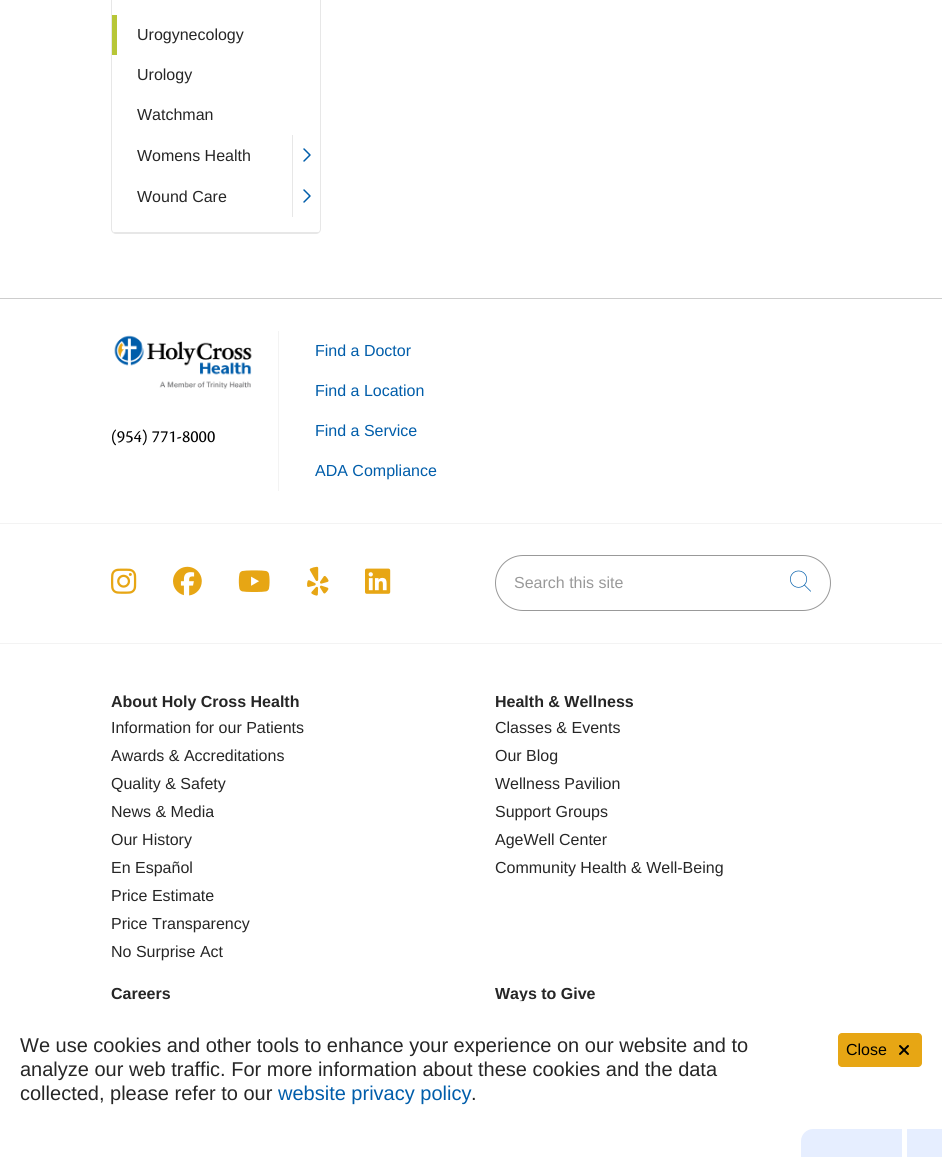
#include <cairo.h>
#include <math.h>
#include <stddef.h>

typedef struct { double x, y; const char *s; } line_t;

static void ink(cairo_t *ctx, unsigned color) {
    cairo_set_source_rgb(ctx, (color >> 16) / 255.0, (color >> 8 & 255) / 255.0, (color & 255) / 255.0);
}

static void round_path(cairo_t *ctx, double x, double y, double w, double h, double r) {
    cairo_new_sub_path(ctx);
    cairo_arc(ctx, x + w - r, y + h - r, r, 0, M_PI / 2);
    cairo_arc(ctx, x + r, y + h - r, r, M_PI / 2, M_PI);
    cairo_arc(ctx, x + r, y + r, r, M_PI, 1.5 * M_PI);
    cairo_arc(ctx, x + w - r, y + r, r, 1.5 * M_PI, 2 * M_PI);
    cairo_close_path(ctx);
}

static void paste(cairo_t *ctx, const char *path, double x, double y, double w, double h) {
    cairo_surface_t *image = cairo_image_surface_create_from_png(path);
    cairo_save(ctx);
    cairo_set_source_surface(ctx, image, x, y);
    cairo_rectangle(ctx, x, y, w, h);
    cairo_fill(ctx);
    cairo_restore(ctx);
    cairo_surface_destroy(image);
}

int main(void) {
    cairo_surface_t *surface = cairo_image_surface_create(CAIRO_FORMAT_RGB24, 942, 1157);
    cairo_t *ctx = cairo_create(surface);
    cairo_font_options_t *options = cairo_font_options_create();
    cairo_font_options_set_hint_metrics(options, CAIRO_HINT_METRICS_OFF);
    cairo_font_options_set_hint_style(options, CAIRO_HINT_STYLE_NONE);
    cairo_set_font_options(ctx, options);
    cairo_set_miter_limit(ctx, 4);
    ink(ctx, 0xFFFFFF);
    cairo_paint(ctx);
    round_path(ctx, 111.5, -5.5, 209, 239, 4.5);
    ink(ctx, 0xE7E7E7);
    cairo_set_line_width(ctx, 1);
    cairo_stroke(ctx);
    cairo_rectangle(ctx, 114, 232, 205, 1);
    cairo_fill(ctx);
    ink(ctx, 0xB7C637);
    cairo_rectangle(ctx, 112, 15, 5, 40);
    cairo_fill(ctx);
    cairo_select_font_face(ctx, "Liberation Sans", CAIRO_FONT_SLANT_NORMAL, CAIRO_FONT_WEIGHT_NORMAL);
    cairo_set_font_size(ctx, 16);
    ink(ctx, 0x262626);
    {
        static const line_t items[] = {
            {137, 40, "Urogynecology"},
            {137, 80, "Urology"},
            {137, 120, "Watchman"},
            {137, 161, "Womens Health"},
        };
        for (size_t i = 0; i < sizeof items / sizeof *items; i++) {
            cairo_move_to(ctx, items[i].x, items[i].y);
            cairo_show_text(ctx, items[i].s);
        }
    }
    ink(ctx, 0xE7E7E7);
    cairo_rectangle(ctx, 292, 135, 1, 82);
    cairo_fill(ctx);
    paste(ctx, "media/1.png", 303, 148, 8, 14);
    ink(ctx, 0x262626);
    cairo_move_to(ctx, 137, 202);
    cairo_show_text(ctx, "Wound Care");
    paste(ctx, "media/1.png", 303, 189, 8, 14);
    ink(ctx, 0xCDCDCD);
    cairo_rectangle(ctx, 0, 298, 942, 1);
    cairo_fill(ctx);
    paste(ctx, "media/2.png", 114, 335, 138, 54);
    ink(ctx, 0xF3F3F3);
    cairo_rectangle(ctx, 278, 331, 1, 160);
    cairo_fill(ctx);
    cairo_select_font_face(ctx, "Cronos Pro", CAIRO_FONT_SLANT_NORMAL, CAIRO_FONT_WEIGHT_NORMAL);
    cairo_set_font_size(ctx, 18);
    ink(ctx, 0x000000);
    cairo_move_to(ctx, 111, 442);
    cairo_show_text(ctx, "(954) 771-8000");
    cairo_select_font_face(ctx, "Liberation Sans", CAIRO_FONT_SLANT_NORMAL, CAIRO_FONT_WEIGHT_NORMAL);
    cairo_set_font_size(ctx, 16);
    ink(ctx, 0x005DAA);
    {
        static const line_t items[] = {
            {315, 356, "Find a Doctor"},
            {315, 396, "Find a Location"},
            {315, 436, "Find a Service"},
            {315, 476, "ADA Compliance"},
        };
        for (size_t i = 0; i < sizeof items / sizeof *items; i++) {
            cairo_move_to(ctx, items[i].x, items[i].y);
            cairo_show_text(ctx, items[i].s);
        }
    }
    ink(ctx, 0xF3F3F3);
    cairo_rectangle(ctx, 0, 523, 942, 1);
    cairo_fill(ctx);
    paste(ctx, "media/3.png", 111, 568, 26, 26);
    paste(ctx, "media/4.png", 173, 566, 29, 30);
    paste(ctx, "media/5.png", 238, 570, 32, 22);
    paste(ctx, "media/6.png", 307, 566, 22, 30);
    paste(ctx, "media/7.png", 365, 568, 26, 26);
    round_path(ctx, 495.5, 555.5, 335, 55, 27.5);
    ink(ctx, 0x999999);
    cairo_stroke(ctx);
    cairo_move_to(ctx, 514, 588);
    cairo_show_text(ctx, "Search this site");
    paste(ctx, "media/8.png", 790, 570, 21, 22);
    ink(ctx, 0xF3F3F3);
    cairo_rectangle(ctx, 0, 643, 942, 1);
    cairo_fill(ctx);
    cairo_select_font_face(ctx, "Liberation Sans", CAIRO_FONT_SLANT_NORMAL, CAIRO_FONT_WEIGHT_BOLD);
    ink(ctx, 0x262626);
    cairo_move_to(ctx, 111, 707);
    cairo_show_text(ctx, "About Holy Cross Health");
    cairo_select_font_face(ctx, "Liberation Sans", CAIRO_FONT_SLANT_NORMAL, CAIRO_FONT_WEIGHT_NORMAL);
    {
        static const line_t items[] = {
            {111, 733, "Information for our Patients"},
            {111, 761, "Awards & Accreditations"},
            {111, 789, "Quality & Safety"},
            {111, 817, "News & Media"},
            {111, 845, "Our History"},
            {111, 873, "En Español"},
            {111, 901, "Price Estimate"},
            {111, 929, "Price Transparency"},
            {111, 957, "No Surprise Act"},
        };
        for (size_t i = 0; i < sizeof items / sizeof *items; i++) {
            cairo_move_to(ctx, items[i].x, items[i].y);
            cairo_show_text(ctx, items[i].s);
        }
    }
    cairo_select_font_face(ctx, "Liberation Sans", CAIRO_FONT_SLANT_NORMAL, CAIRO_FONT_WEIGHT_BOLD);
    cairo_move_to(ctx, 495, 707);
    cairo_show_text(ctx, "Health & Wellness");
    cairo_select_font_face(ctx, "Liberation Sans", CAIRO_FONT_SLANT_NORMAL, CAIRO_FONT_WEIGHT_NORMAL);
    {
        static const line_t items[] = {
            {495, 733, "Classes & Events"},
            {495, 761, "Our Blog"},
            {495, 789, "Wellness Pavilion"},
            {495, 817, "Support Groups"},
            {495, 845, "AgeWell Center"},
            {495, 873, "Community Health & Well-Being"},
        };
        for (size_t i = 0; i < sizeof items / sizeof *items; i++) {
            cairo_move_to(ctx, items[i].x, items[i].y);
            cairo_show_text(ctx, items[i].s);
        }
    }
    cairo_select_font_face(ctx, "Liberation Sans", CAIRO_FONT_SLANT_NORMAL, CAIRO_FONT_WEIGHT_BOLD);
    cairo_move_to(ctx, 111, 999);
    cairo_show_text(ctx, "Careers");
    cairo_move_to(ctx, 495, 999);
    cairo_show_text(ctx, "Ways to Give");
    ink(ctx, 0x0051FF);
    cairo_new_path(ctx);
    cairo_move_to(ctx, 813, 1129);
    cairo_line_to(ctx, 902, 1129);
    cairo_line_to(ctx, 902, 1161);
    cairo_line_to(ctx, 801, 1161);
    cairo_line_to(ctx, 801, 1141);
    cairo_curve_to(ctx, 801, 1134.5, 806.5, 1129, 813, 1129);
    cairo_close_path(ctx);
    cairo_fill(ctx);
    cairo_rectangle(ctx, 907, 1129, 35, 28);
    cairo_fill(ctx);
    cairo_set_source_rgba(ctx, 1, 1, 1, 0.9);
    cairo_rectangle(ctx, 519, 1001, 423, 156);
    cairo_fill(ctx);
    cairo_select_font_face(ctx, "Liberation Sans", CAIRO_FONT_SLANT_NORMAL, CAIRO_FONT_WEIGHT_NORMAL);
    cairo_set_font_size(ctx, 20);
    ink(ctx, 0x262626);
    {
        static const line_t items[] = {
            {20, 1052, "We use cookies and other tools to enhance your experience on our website and to"},
            {20, 1076, "analyze our web traffic. For more information about these cookies and the data"},
            {20, 1100, "collected, please refer to our"},
        };
        for (size_t i = 0; i < sizeof items / sizeof *items; i++) {
            cairo_move_to(ctx, items[i].x, items[i].y);
            cairo_show_text(ctx, items[i].s);
        }
    }
    ink(ctx, 0x005DAA);
    cairo_move_to(ctx, 278, 1100);
    cairo_show_text(ctx, "website privacy policy");
    ink(ctx, 0x262626);
    cairo_move_to(ctx, 471, 1100);
    cairo_show_text(ctx, ".");
    ink(ctx, 0xE7A614);
    round_path(ctx, 838, 1033, 84, 34, 4);
    cairo_fill(ctx);
    cairo_set_font_size(ctx, 16);
    ink(ctx, 0x000000);
    cairo_move_to(ctx, 846, 1055);
    cairo_show_text(ctx, "Close");
    paste(ctx, "media/9.png", 899, 1045, 10, 10);
    cairo_surface_write_to_png(surface, "image.png");
    cairo_font_options_destroy(options);
    cairo_destroy(ctx);
    cairo_surface_destroy(surface);
    return 0;
}
